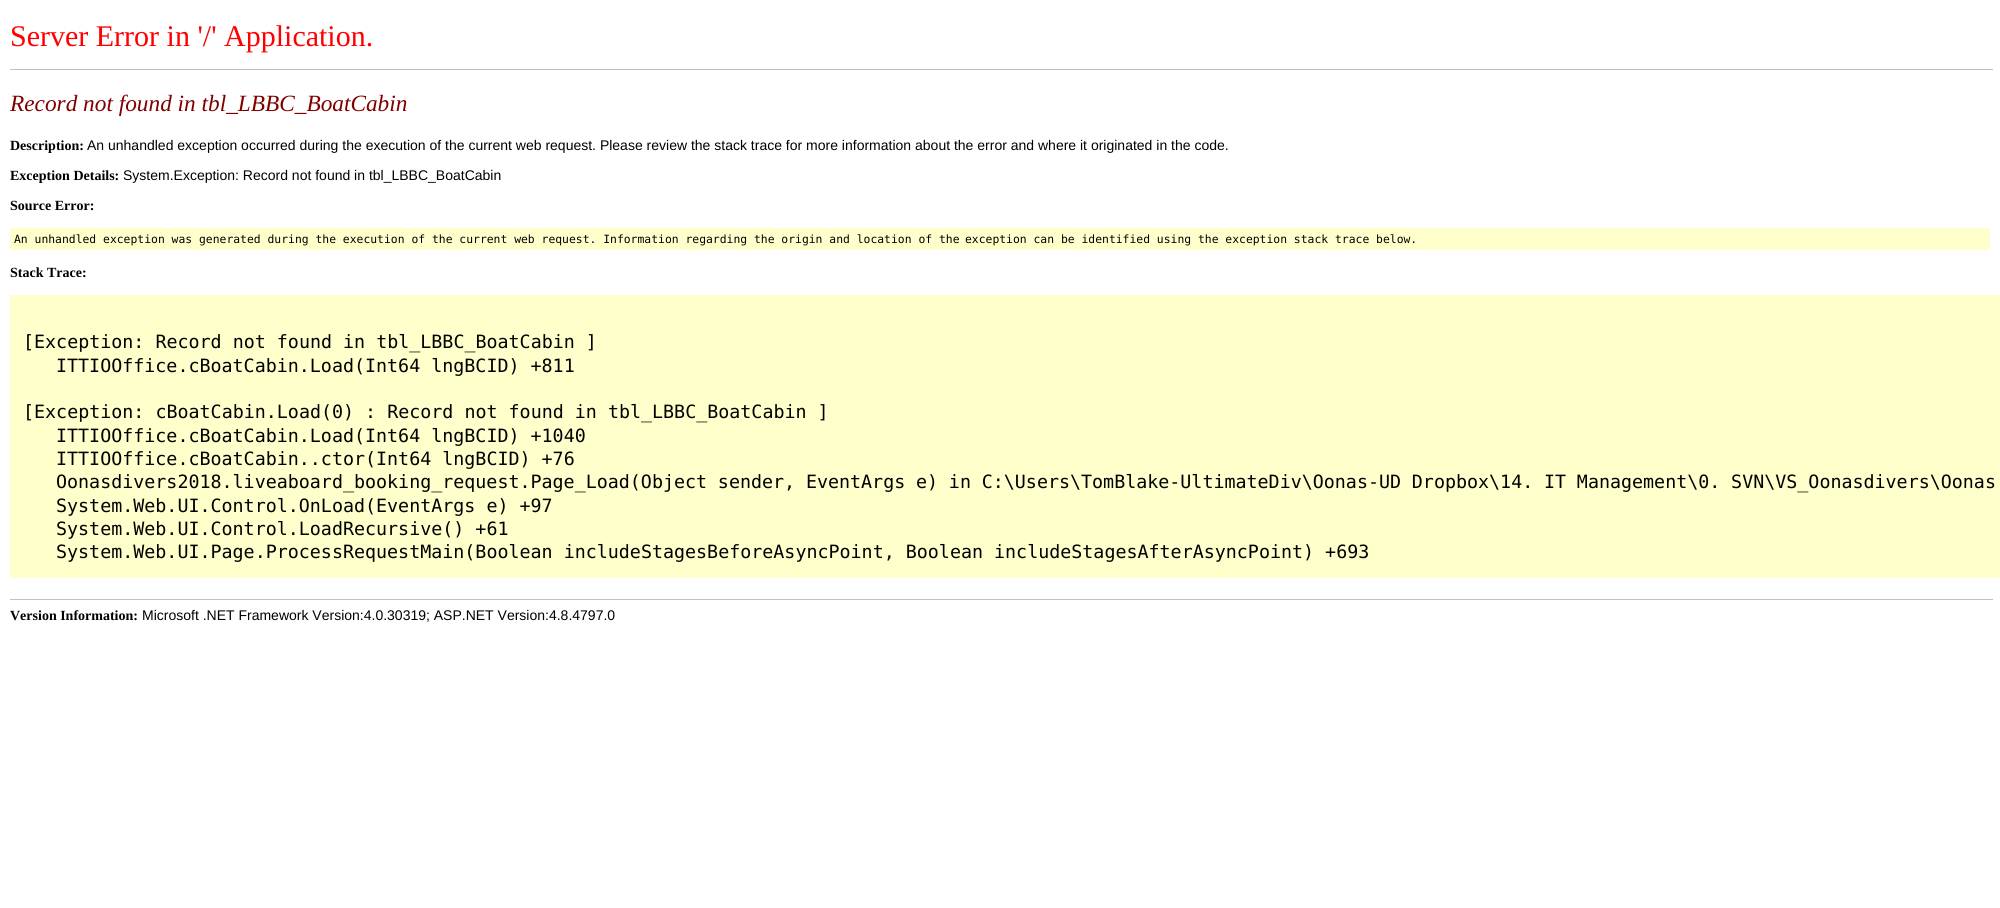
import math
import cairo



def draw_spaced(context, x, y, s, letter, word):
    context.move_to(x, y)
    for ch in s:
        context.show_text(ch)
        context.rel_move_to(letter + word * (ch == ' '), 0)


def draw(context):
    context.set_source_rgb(1, 1, 1)
    context.paint()
    context.set_source_rgb(192 / 255, 192 / 255, 192 / 255)
    context.rectangle(10, 69, 1983, 1)
    context.fill()
    context.set_source_rgb(1, 1, 204 / 255)
    context.rectangle(10, 228, 1980, 22)
    context.fill()
    context.rectangle(10, 295, 1990, 283)
    context.fill()
    context.set_source_rgb(192 / 255, 192 / 255, 192 / 255)
    context.rectangle(10, 599, 1983, 1)
    context.fill()
    context.select_font_face("Liberation Serif")
    context.set_font_size(30)
    context.set_source_rgb(1, 0, 0)
    context.move_to(10, 46)
    context.show_text("Server Error in '/' Application.")
    context.select_font_face("Liberation Serif", cairo.FontSlant.ITALIC)
    context.set_font_size(23.3)
    context.set_source_rgb(128 / 255, 0, 0)
    context.move_to(10, 111)
    context.show_text("Record not found in tbl_LBBC_BoatCabin")
    context.select_font_face("Liberation Serif", cairo.FontSlant.NORMAL, cairo.FontWeight.BOLD)
    context.set_font_size(14)
    context.set_source_rgb(0, 0, 0)
    context.move_to(10, 150)
    context.show_text("Description:")
    context.select_font_face("Liberation Sans")
    context.move_to(87, 150)
    context.show_text("An unhandled exception occurred during the execution of the current web request. Please review the stack trace for more information about the error and where it originated in the code.")
    context.select_font_face("Liberation Serif", cairo.FontSlant.NORMAL, cairo.FontWeight.BOLD)
    context.move_to(10, 180)
    context.show_text("Exception Details:")
    context.select_font_face("Liberation Sans")
    context.move_to(123, 180)
    context.show_text("System.Exception: Record not found in tbl_LBBC_BoatCabin")
    context.select_font_face("Liberation Serif", cairo.FontSlant.NORMAL, cairo.FontWeight.BOLD)
    context.move_to(10, 210)
    context.show_text("Source Error:")
    context.select_font_face("DejaVu Sans Mono")
    context.set_font_size(11.38)
    context.move_to(14, 243)
    context.show_text("An unhandled exception was generated during the execution of the current web request. Information regarding the origin and location of the")
    context.move_to(965, 243)
    context.show_text("exception can be identified using the exception stack trace below.")
    context.select_font_face("Liberation Serif", cairo.FontSlant.NORMAL, cairo.FontWeight.BOLD)
    context.set_font_size(14)
    context.move_to(10, 277)
    context.show_text("Stack Trace:")
    context.select_font_face("DejaVu Sans Mono")
    context.set_font_size(18.33)
    context.move_to(23, 348)
    context.show_text("[Exception: Record not found in tbl_LBBC_BoatCabin ]")
    context.move_to(56, 372)
    context.show_text("ITTIOOffice.cBoatCabin.Load(Int64 lngBCID) +811")
    context.move_to(23, 418)
    context.show_text("[Exception: cBoatCabin.Load(0) : Record not found in tbl_LBBC_BoatCabin ]")
    context.move_to(56, 442)
    context.show_text("ITTIOOffice.cBoatCabin.Load(Int64 lngBCID) +1040")
    context.move_to(56, 465)
    context.show_text("ITTIOOffice.cBoatCabin..ctor(Int64 lngBCID) +76")
    draw_spaced(context, 56, 488, "Oonasdivers2018.liveaboard_booking_request.Page_Load(Object sender, EventArgs e) in C:\\Users\\TomBlake-UltimateDiv\\Oonas-UD Dropbox\\14. IT Management\\0. SVN\\VS_Oonasdivers\\Oonas", 0, -0.25)
    context.move_to(56, 512)
    context.show_text("System.Web.UI.Control.OnLoad(EventArgs e) +97")
    context.move_to(56, 535)
    context.show_text("System.Web.UI.Control.LoadRecursive() +61")
    context.move_to(56, 558)
    context.show_text("System.Web.UI.Page.ProcessRequestMain(Boolean includeStagesBeforeAsyncPoint, Boolean includeStagesAfterAsyncPoint) +693")
    context.select_font_face("Liberation Serif", cairo.FontSlant.NORMAL, cairo.FontWeight.BOLD)
    context.set_font_size(14)
    context.move_to(10, 620)
    context.show_text("Version Information:")
    context.select_font_face("Liberation Sans")
    context.move_to(142, 620)
    context.show_text("Microsoft .NET Framework Version:4.0.30319; ASP.NET Version:4.8.4797.0")


surface = cairo.ImageSurface(cairo.Format.RGB24, 2000, 908)
context = cairo.Context(surface)
options = cairo.FontOptions()
options.set_hint_metrics(cairo.HintMetrics.OFF)
options.set_hint_style(cairo.HintStyle.NONE)
context.set_font_options(options)
context.set_miter_limit(4)
draw(context)
surface.write_to_png("out.png")
